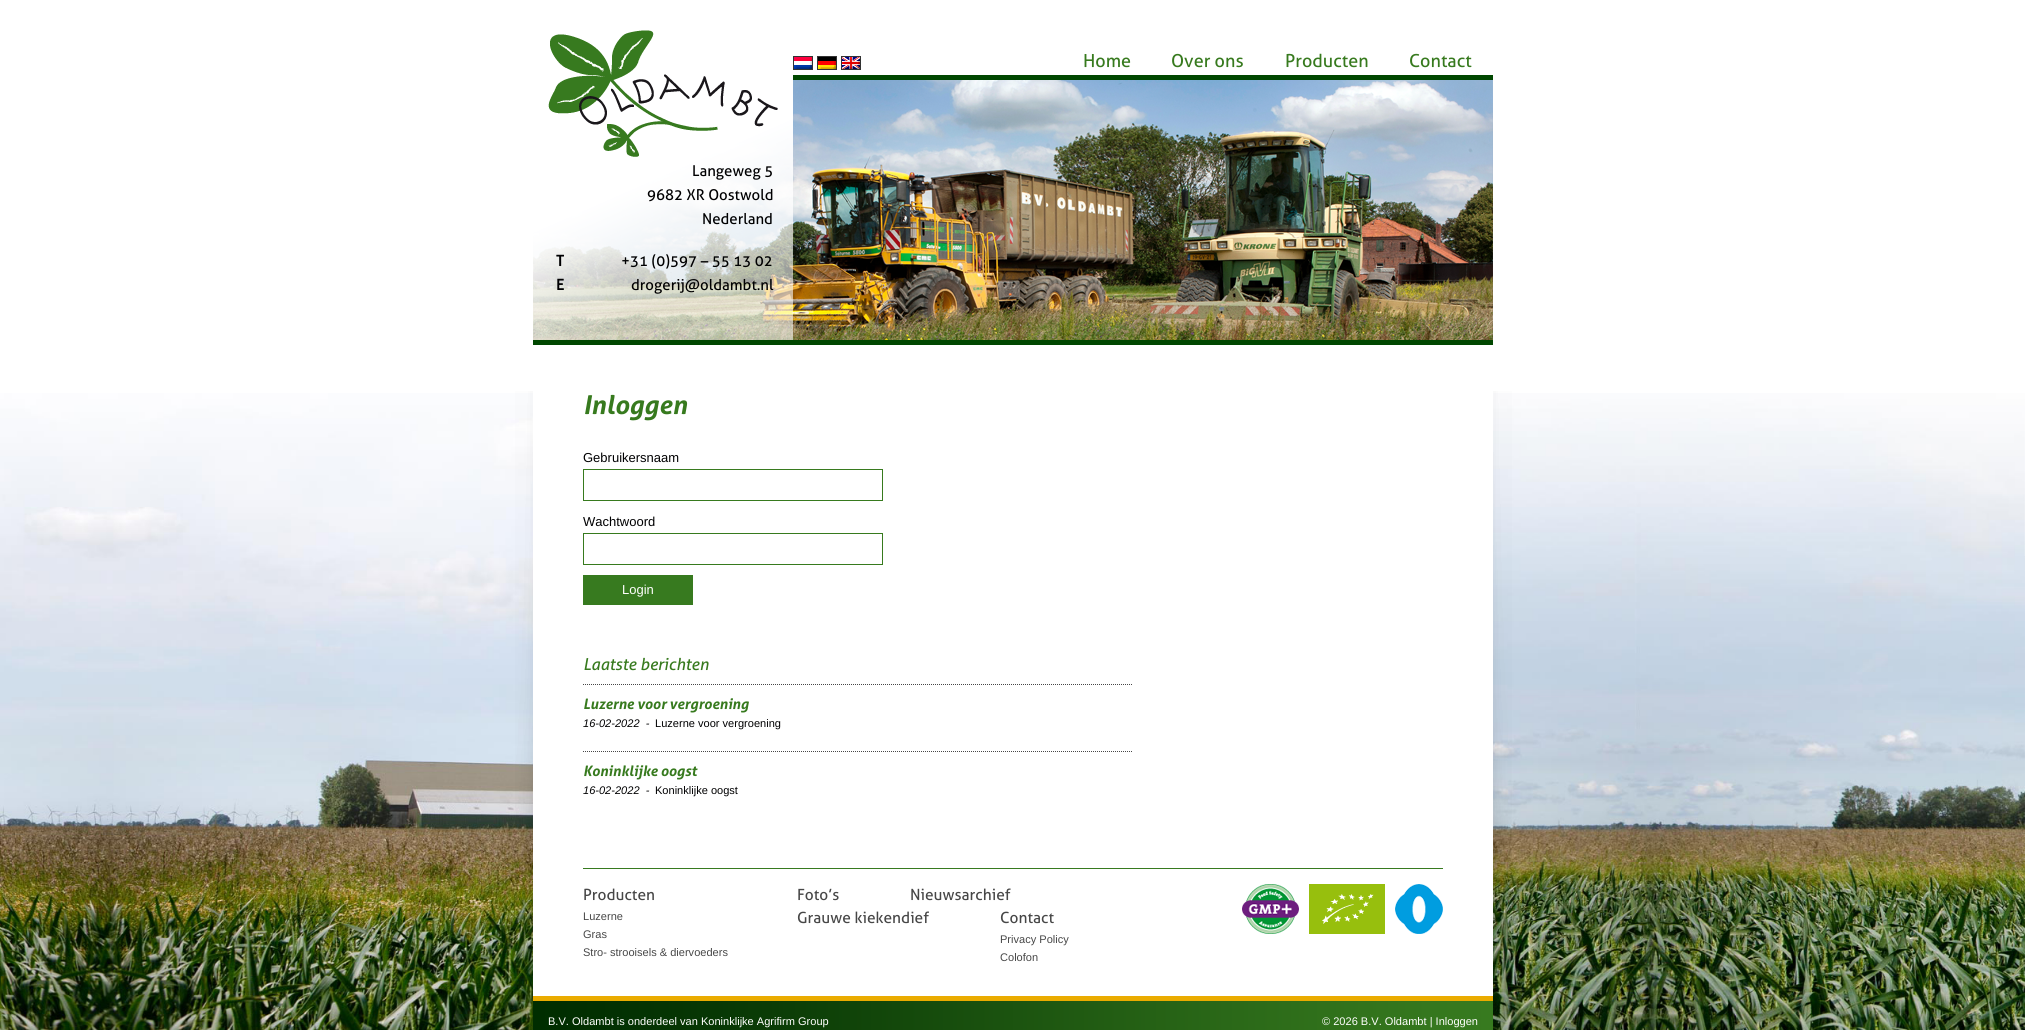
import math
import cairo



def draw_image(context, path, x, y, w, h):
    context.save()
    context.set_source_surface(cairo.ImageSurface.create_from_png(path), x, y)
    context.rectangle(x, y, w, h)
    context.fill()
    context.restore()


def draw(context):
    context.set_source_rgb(1, 1, 1)
    context.paint()
    draw_image(context, "images/1.png", 0, 393, 2025, 637)
    draw_image(context, "images/2.png", 2024, 556, 1, 474)
    context.set_source_rgb(1, 1, 1)
    context.rectangle(533, 393, 960, 603)
    context.fill()
    draw_image(context, "images/4.png", 533, 80, 960, 260)
    draw_image(context, "images/5.png", 533, 80, 260, 260)
    draw_image(context, "images/3.png", 548, 30, 230, 127)
    context.set_source_rgb(0, 71 / 255, 0)
    context.rectangle(793, 75, 700, 5)
    context.fill()
    context.rectangle(533, 340, 960, 5)
    context.fill()
    context.rectangle(793.5, 56.5, 19, 13)
    context.set_source_rgb(51 / 255, 51 / 255, 51 / 255)
    context.set_line_width(1)
    context.stroke()
    context.rectangle(817.5, 56.5, 19, 13)
    context.stroke()
    draw_image(context, "images/6.png", 818, 57, 18, 12)
    context.rectangle(841.5, 56.5, 19, 13)
    context.stroke()
    draw_image(context, "images/7.png", 842, 57, 18, 12)
    draw_image(context, "images/8.png", 794, 57, 18, 12)
    draw_image(context, "images/9.png", 515, 391, 18, 639)
    context.rectangle(583.5, 469.5, 299, 31)
    context.set_source_rgb(55 / 255, 122 / 255, 30 / 255)
    context.stroke()
    context.rectangle(583.5, 533.5, 299, 31)
    context.stroke()
    context.set_source_rgb(55 / 255, 122 / 255, 31 / 255)
    context.rectangle(583, 575, 110, 30)
    context.fill()
    context.new_path()
    context.move_to(583, 684.5)
    context.line_to(1133, 684.5)
    context.set_source_rgb(71 / 255, 71 / 255, 71 / 255)
    context.set_dash([1, 1])
    context.stroke()
    context.new_path()
    context.move_to(583, 751.5)
    context.line_to(1133, 751.5)
    context.stroke()
    draw_image(context, "images/10.png", 1493, 391, 19, 639)
    context.set_source_rgb(55 / 255, 122 / 255, 31 / 255)
    context.rectangle(583, 868, 860, 1)
    context.fill()
    draw_image(context, "images/11.png", 1242, 884, 57, 50)
    draw_image(context, "images/12.png", 1309, 884, 76, 50)
    draw_image(context, "images/13.png", 1395, 884, 48, 50)
    draw_image(context, "images/14.png", 533, 1001, 960, 29)
    context.set_source_rgb(234 / 255, 171 / 255, 0)
    context.rectangle(533, 996, 960, 5)
    context.fill()
    context.select_font_face("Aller")
    context.set_font_size(18)
    context.set_source_rgb(55 / 255, 122 / 255, 30 / 255)
    context.move_to(1083, 67)
    context.show_text("Home")
    context.move_to(1171, 67)
    context.show_text("Over ons")
    context.move_to(1285, 67)
    context.show_text("Producten")
    context.move_to(1409, 67)
    context.show_text("Contact")
    context.set_font_size(15)
    context.set_source_rgb(0, 0, 1 / 255)
    context.move_to(692, 176)
    context.show_text("Langeweg 5")
    context.move_to(647, 200)
    context.show_text("9682 XR Oostwold")
    context.move_to(702, 224)
    context.show_text("Nederland")
    context.select_font_face("Aller", cairo.FontSlant.NORMAL, cairo.FontWeight.BOLD)
    context.move_to(556, 266)
    context.show_text("T")
    context.select_font_face("Aller")
    context.move_to(621, 266)
    context.show_text("+31 (0)597 – 55 13 02")
    context.select_font_face("Aller", cairo.FontSlant.NORMAL, cairo.FontWeight.BOLD)
    context.move_to(556, 290)
    context.show_text("E")
    context.select_font_face("Aller")
    context.move_to(631, 290)
    context.show_text("drogerij@oldambt.nl")
    context.select_font_face("Aller", cairo.FontSlant.ITALIC, cairo.FontWeight.BOLD)
    context.set_font_size(26)
    context.set_source_rgb(55 / 255, 122 / 255, 30 / 255)
    context.move_to(583, 414)
    context.show_text("Inloggen")
    context.select_font_face("Liberation Sans")
    context.set_font_size(13)
    context.set_source_rgb(0, 0, 1 / 255)
    context.move_to(583, 462)
    context.show_text("Gebruikersnaam")
    context.move_to(583, 526)
    context.show_text("Wachtwoord")
    context.set_source_rgb(1, 1, 254 / 255)
    context.move_to(622, 594)
    context.show_text("Login")
    context.select_font_face("Aller", cairo.FontSlant.ITALIC)
    context.set_font_size(16.5)
    context.set_source_rgb(55 / 255, 122 / 255, 30 / 255)
    context.move_to(583, 670)
    context.show_text("Laatste berichten")
    context.select_font_face("Aller", cairo.FontSlant.ITALIC, cairo.FontWeight.BOLD)
    context.set_font_size(14.4)
    context.move_to(583, 709)
    context.show_text("Luzerne voor vergroening")
    context.select_font_face("Liberation Sans", cairo.FontSlant.ITALIC)
    context.set_font_size(11.05)
    context.set_source_rgb(0, 0, 1 / 255)
    context.move_to(583, 727)
    context.show_text("16-02-2022  -")
    context.select_font_face("Liberation Sans")
    context.move_to(655, 727)
    context.show_text("Luzerne voor vergroening")
    context.select_font_face("Aller", cairo.FontSlant.ITALIC, cairo.FontWeight.BOLD)
    context.set_font_size(14.4)
    context.set_source_rgb(55 / 255, 122 / 255, 30 / 255)
    context.move_to(583, 776)
    context.show_text("Koninklijke oogst")
    context.select_font_face("Liberation Sans", cairo.FontSlant.ITALIC)
    context.set_font_size(11.05)
    context.set_source_rgb(0, 0, 1 / 255)
    context.move_to(583, 794)
    context.show_text("16-02-2022  -")
    context.select_font_face("Liberation Sans")
    context.move_to(655, 794)
    context.show_text("Koninklijke oogst")
    context.select_font_face("Aller")
    context.set_font_size(15.5)
    context.set_source_rgb(71 / 255, 71 / 255, 71 / 255)
    context.move_to(583, 900)
    context.show_text("Producten")
    context.select_font_face("Liberation Sans")
    context.set_font_size(11.05)
    context.move_to(583, 920)
    context.show_text("Luzerne")
    context.move_to(583, 938)
    context.show_text("Gras")
    context.move_to(583, 956)
    context.show_text("Stro- strooisels & diervoeders")
    context.select_font_face("Aller")
    context.set_font_size(15.5)
    context.move_to(797, 900)
    context.show_text("Foto’s")
    context.move_to(910, 900)
    context.show_text("Nieuwsarchief")
    context.move_to(797, 923)
    context.show_text("Grauwe kiekendief")
    context.move_to(1000, 923)
    context.show_text("Contact")
    context.select_font_face("Liberation Sans")
    context.set_font_size(11.05)
    context.move_to(1000, 943)
    context.show_text("Privacy Policy")
    context.move_to(1000, 961)
    context.show_text("Colofon")
    context.set_source_rgb(1, 1, 254 / 255)
    context.move_to(548, 1025)
    context.show_text("B.V. Oldambt is onderdeel van Koninklijke Agrifirm Group")
    context.move_to(1322, 1025)
    context.show_text("© 2026 B.V. Oldambt | Inloggen")


surface = cairo.ImageSurface(cairo.Format.RGB24, 2025, 1030)
context = cairo.Context(surface)
options = cairo.FontOptions()
options.set_hint_metrics(cairo.HintMetrics.OFF)
options.set_hint_style(cairo.HintStyle.NONE)
context.set_font_options(options)
context.set_miter_limit(4)
draw(context)
surface.write_to_png("out.png")
